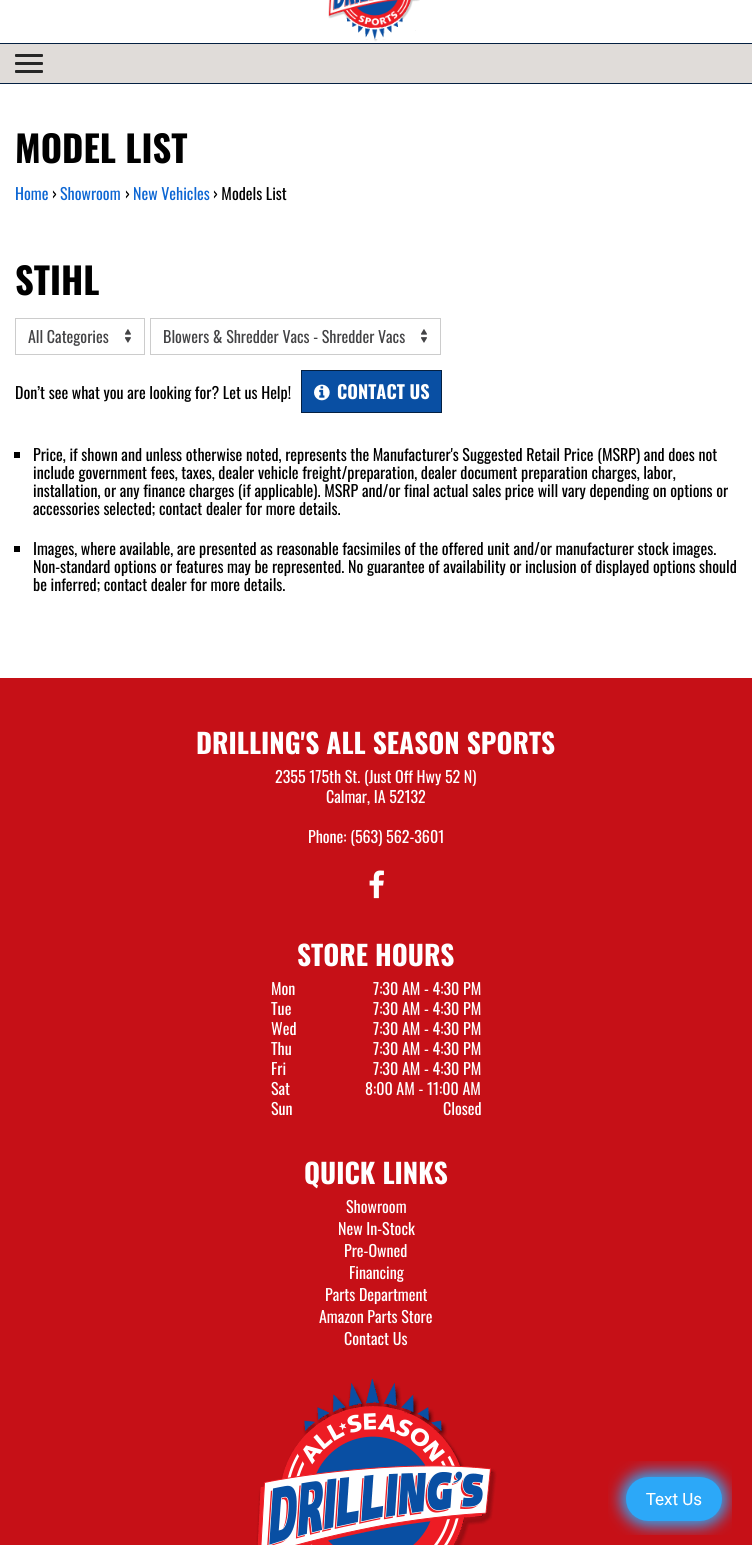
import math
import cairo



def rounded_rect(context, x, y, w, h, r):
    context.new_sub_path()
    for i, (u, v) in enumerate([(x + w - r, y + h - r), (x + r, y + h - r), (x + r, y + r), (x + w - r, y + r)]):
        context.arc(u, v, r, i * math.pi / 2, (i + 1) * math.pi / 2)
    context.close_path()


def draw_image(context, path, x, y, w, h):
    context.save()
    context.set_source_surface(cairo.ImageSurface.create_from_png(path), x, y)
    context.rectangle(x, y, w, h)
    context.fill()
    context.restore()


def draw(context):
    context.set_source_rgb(1, 1, 1)
    context.paint()
    draw_image(context, "images/1.png", 328, 0, 92, 42)
    context.set_source_rgb(224 / 255, 220 / 255, 217 / 255)
    context.rectangle(0, 44, 752, 39)
    context.fill()
    context.set_source_rgb(4 / 255, 32 / 255, 66 / 255)
    context.rectangle(0, 43, 752, 1)
    context.fill()
    context.rectangle(0, 83, 752, 1)
    context.fill()
    context.set_source_rgb(38 / 255, 38 / 255, 38 / 255)
    rounded_rect(context, 15, 54, 28, 3, 1)
    context.fill()
    rounded_rect(context, 15, 62, 28, 3, 1)
    context.fill()
    rounded_rect(context, 15, 70, 28, 3, 1)
    context.fill()
    context.rectangle(15.5, 318.5, 129, 36)
    context.set_source_rgb(204 / 255, 204 / 255, 204 / 255)
    context.set_line_width(1)
    context.stroke()
    draw_image(context, "images/2.png", 125, 329, 6, 14)
    context.rectangle(150.5, 318.5, 290, 36)
    context.stroke()
    draw_image(context, "images/3.png", 421, 329, 6, 14)
    context.set_source_rgb(9 / 255, 79 / 255, 163 / 255)
    context.rectangle(301.5, 370.5, 140, 42)
    context.fill_preserve()
    context.set_source_rgb(4 / 255, 32 / 255, 66 / 255)
    context.stroke()
    draw_image(context, "images/4.png", 314, 384, 16, 17)
    context.set_source_rgb(0, 0, 0)
    context.rectangle(14, 452, 6, 6)
    context.fill()
    context.rectangle(14, 546, 6, 6)
    context.fill()
    context.set_source_rgb(198 / 255, 16 / 255, 23 / 255)
    context.rectangle(0, 678, 752, 867)
    context.fill()
    draw_image(context, "images/5.png", 369, 870, 15, 29)
    draw_image(context, "images/6.png", 256, 1379, 241, 166)
    draw_image(context, "images/7.png", 608, 1461, 124, 74)
    context.select_font_face("Oswald", cairo.FontSlant.NORMAL, cairo.FontWeight.BOLD)
    context.set_font_size(36.5)
    context.set_source_rgb(0, 0, 0)
    context.move_to(15, 163)
    context.show_text("MODEL LIST")
    context.select_font_face("Oswald")
    context.set_font_size(16)
    context.set_source_rgb(12 / 255, 102 / 255, 211 / 255)
    context.move_to(15, 200)
    context.show_text("Home")
    context.set_source_rgb(0, 0, 0)
    context.move_to(52, 200)
    context.show_text("›")
    context.set_source_rgb(12 / 255, 102 / 255, 211 / 255)
    context.move_to(60, 200)
    context.show_text("Showroom")
    context.set_source_rgb(0, 0, 0)
    context.move_to(125, 200)
    context.show_text("›")
    context.set_source_rgb(12 / 255, 102 / 255, 211 / 255)
    context.move_to(133, 200)
    context.show_text("New Vehicles")
    context.set_source_rgb(0, 0, 0)
    context.move_to(213, 200)
    context.show_text("› Models List")
    context.select_font_face("Oswald", cairo.FontSlant.NORMAL, cairo.FontWeight.BOLD)
    context.set_font_size(36.5)
    context.move_to(15, 295)
    context.show_text("STIHL")
    context.select_font_face("Oswald")
    context.set_font_size(16)
    context.set_source_rgb(67 / 255, 67 / 255, 69 / 255)
    context.move_to(28, 343)
    context.show_text("All Categories")
    context.move_to(163, 343)
    context.show_text("Blowers & Shredder Vacs - Shredder Vacs")
    context.set_source_rgb(0, 0, 0)
    context.move_to(15, 399)
    context.show_text("Don’t see what you are looking for? Let us Help!")
    context.select_font_face("Oswald", cairo.FontSlant.NORMAL, cairo.FontWeight.BOLD)
    context.set_font_size(18.25)
    context.set_source_rgb(1, 1, 1)
    context.move_to(337, 399)
    context.show_text("CONTACT US")
    context.select_font_face("Oswald")
    context.set_font_size(16)
    context.set_source_rgb(0, 0, 0)
    context.move_to(33, 461)
    context.show_text("Price, if shown and unless otherwise noted, represents the Manufacturer's Suggested Retail Price (MSRP) and does not")
    context.move_to(33, 479)
    context.show_text("include government fees, taxes, dealer vehicle freight/preparation, dealer document preparation charges, labor,")
    context.move_to(33, 497)
    context.show_text("installation, or any finance charges (if applicable). MSRP and/or final actual sales price will vary depending on options or")
    context.move_to(33, 515)
    context.show_text("accessories selected; contact dealer for more details.")
    context.move_to(33, 555)
    context.show_text("Images, where available, are presented as reasonable facsimiles of the offered unit and/or manufacturer stock images.")
    context.move_to(33, 573)
    context.show_text("Non-standard options or features may be represented. No guarantee of availability or inclusion of displayed options should")
    context.move_to(33, 591)
    context.show_text("be inferred; contact dealer for more details.")
    context.select_font_face("Oswald", cairo.FontSlant.NORMAL, cairo.FontWeight.BOLD)
    context.set_font_size(27.4)
    context.set_source_rgb(1, 1, 1)
    context.move_to(196, 754)
    context.show_text("DRILLING'S ALL SEASON SPORTS")
    context.select_font_face("Oswald")
    context.set_font_size(16)
    context.move_to(275, 783)
    context.show_text("2355 175th St. (Just Off Hwy 52 N)")
    context.move_to(326, 803)
    context.show_text("Calmar, IA 52132")
    context.move_to(308, 843)
    context.show_text("Phone: (563) 562-3601")
    context.select_font_face("Oswald", cairo.FontSlant.NORMAL, cairo.FontWeight.BOLD)
    context.set_font_size(27.4)
    context.move_to(297, 966)
    context.show_text("STORE HOURS")
    context.select_font_face("Oswald")
    context.set_font_size(16)
    context.move_to(271, 995)
    context.show_text("Mon")
    context.move_to(373, 995)
    context.show_text("7:30 AM - 4:30 PM")
    context.move_to(271, 1015)
    context.show_text("Tue")
    context.move_to(373, 1015)
    context.show_text("7:30 AM - 4:30 PM")
    context.move_to(271, 1035)
    context.show_text("Wed")
    context.move_to(373, 1035)
    context.show_text("7:30 AM - 4:30 PM")
    context.move_to(271, 1055)
    context.show_text("Thu")
    context.move_to(373, 1055)
    context.show_text("7:30 AM - 4:30 PM")
    context.move_to(271, 1075)
    context.show_text("Fri")
    context.move_to(373, 1075)
    context.show_text("7:30 AM - 4:30 PM")
    context.move_to(271, 1095)
    context.show_text("Sat")
    context.move_to(365, 1095)
    context.show_text("8:00 AM - 11:00 AM")
    context.move_to(271, 1115)
    context.show_text("Sun")
    context.move_to(443, 1115)
    context.show_text("Closed")
    context.select_font_face("Oswald", cairo.FontSlant.NORMAL, cairo.FontWeight.BOLD)
    context.set_font_size(27.4)
    context.move_to(304, 1184)
    context.show_text("QUICK LINKS")
    context.select_font_face("Oswald")
    context.set_font_size(16)
    context.move_to(346, 1213)
    context.show_text("Showroom")
    context.move_to(338, 1235)
    context.show_text("New In-Stock")
    context.move_to(344, 1257)
    context.show_text("Pre-Owned")
    context.move_to(349, 1279)
    context.show_text("Financing")
    context.move_to(325, 1301)
    context.show_text("Parts Department")
    context.move_to(319, 1323)
    context.show_text("Amazon Parts Store")
    context.move_to(344, 1345)
    context.show_text("Contact Us")


surface = cairo.ImageSurface(cairo.Format.RGB24, 752, 1545)
context = cairo.Context(surface)
options = cairo.FontOptions()
options.set_hint_metrics(cairo.HintMetrics.OFF)
options.set_hint_style(cairo.HintStyle.NONE)
context.set_font_options(options)
context.set_miter_limit(4)
draw(context)
surface.write_to_png("out.png")
